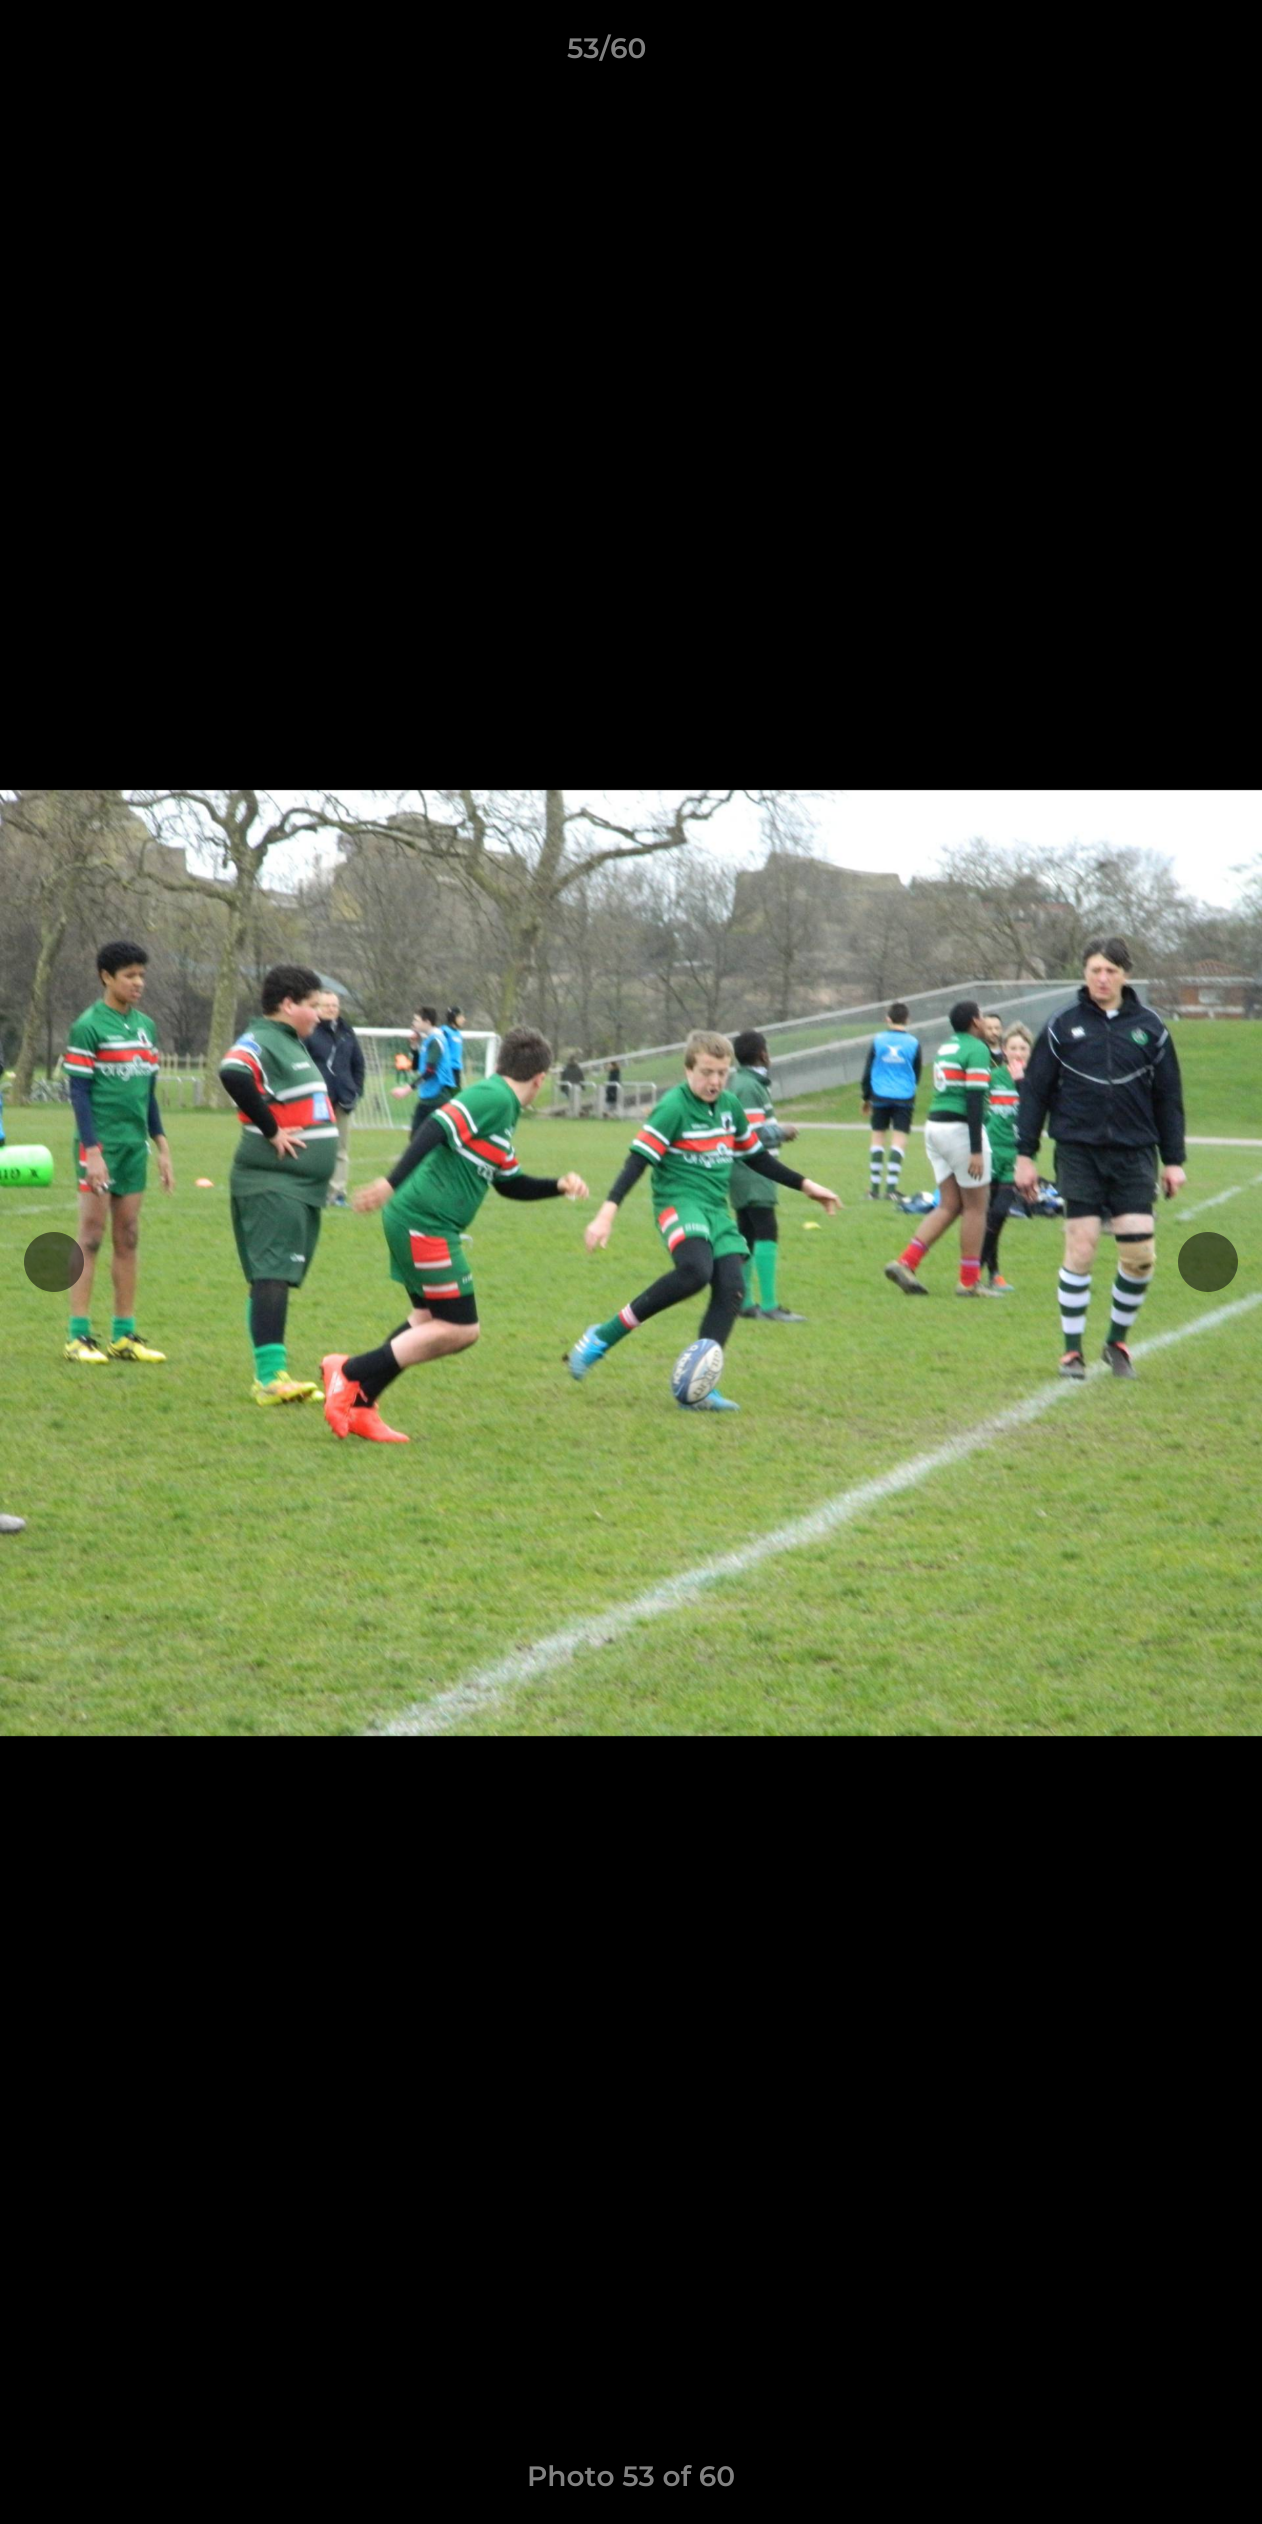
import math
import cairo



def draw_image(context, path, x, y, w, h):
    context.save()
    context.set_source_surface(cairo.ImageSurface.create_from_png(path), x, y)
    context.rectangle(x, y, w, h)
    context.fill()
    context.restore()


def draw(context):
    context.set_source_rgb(0, 0, 0)
    context.paint()
    draw_image(context, "images/1.png", 0, 789, 1262, 948)
    context.set_source_rgba(0, 0, 0, 0.5)
    context.arc(54, 1262, 30, 0, 2 * math.pi)
    context.fill()
    context.arc(1208, 1262, 30, 0, 2 * math.pi)
    context.fill()
    context.select_font_face("Montserrat SemiBold")
    context.set_font_size(28)
    context.set_source_rgb(128 / 255, 128 / 255, 128 / 255)
    context.move_to(567, 58)
    context.show_text("53/60")
    context.move_to(527, 2486)
    context.show_text("Photo 53 of 60")


surface = cairo.ImageSurface(cairo.Format.RGB24, 1262, 2524)
context = cairo.Context(surface)
options = cairo.FontOptions()
options.set_hint_metrics(cairo.HintMetrics.OFF)
options.set_hint_style(cairo.HintStyle.NONE)
context.set_font_options(options)
context.set_miter_limit(4)
draw(context)
surface.write_to_png("out.png")
